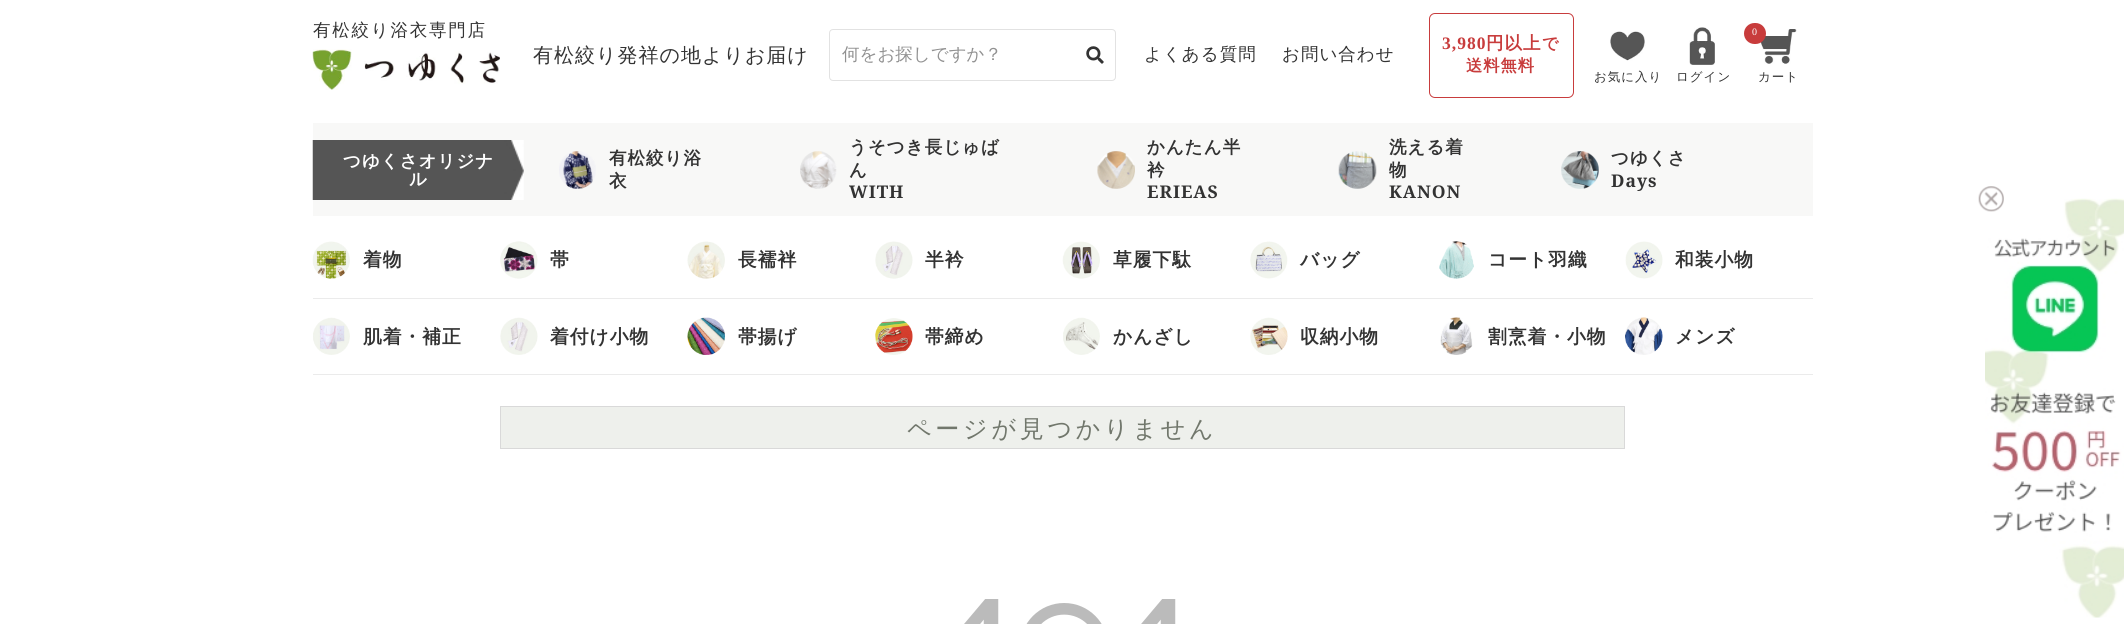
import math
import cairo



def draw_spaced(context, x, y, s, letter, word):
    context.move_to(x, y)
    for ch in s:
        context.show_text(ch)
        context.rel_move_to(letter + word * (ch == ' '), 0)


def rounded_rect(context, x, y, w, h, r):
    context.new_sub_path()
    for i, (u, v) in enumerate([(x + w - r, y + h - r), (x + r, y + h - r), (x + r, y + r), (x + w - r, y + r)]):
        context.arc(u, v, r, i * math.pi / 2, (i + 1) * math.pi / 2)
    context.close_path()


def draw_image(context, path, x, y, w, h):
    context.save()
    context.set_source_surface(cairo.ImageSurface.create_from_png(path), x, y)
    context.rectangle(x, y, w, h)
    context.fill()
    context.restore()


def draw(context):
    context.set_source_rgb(1, 1, 1)
    context.paint()
    draw_image(context, "images/1.png", 312, 49, 188, 41)
    rounded_rect(context, 829.5, 29.5, 286, 51, 3.5)
    context.set_source_rgb(226 / 255, 226 / 255, 226 / 255)
    context.set_line_width(1)
    context.stroke()
    draw_image(context, "images/2.png", 1086, 46, 18, 18)
    rounded_rect(context, 1429.5, 13.5, 144, 84, 5.5)
    context.set_source_rgb(200 / 255, 60 / 255, 61 / 255)
    context.stroke()
    draw_image(context, "images/3.png", 1610, 31, 36, 30)
    draw_image(context, "images/4.png", 1689, 27, 26, 38)
    draw_image(context, "images/5.png", 1758, 29, 39, 35)
    context.set_source_rgb(200 / 255, 60 / 255, 60 / 255)
    rounded_rect(context, 1744, 23, 22, 21, 10.5)
    context.fill()
    context.set_source_rgb(248 / 255, 248 / 255, 247 / 255)
    context.rectangle(313, 123, 1500, 93)
    context.fill()
    draw_image(context, "images/6.png", 312, 140, 212, 60)
    draw_image(context, "images/7.png", 559, 151, 37, 38)
    draw_image(context, "images/8.png", 800, 151, 37, 38)
    draw_image(context, "images/9.png", 1097, 151, 38, 38)
    draw_image(context, "images/10.png", 1338, 151, 39, 38)
    draw_image(context, "images/11.png", 1561, 151, 38, 38)
    context.set_source_rgb(235 / 255, 235 / 255, 235 / 255)
    context.rectangle(313, 298, 1500, 1)
    context.fill()
    draw_image(context, "images/12.png", 312, 241, 38, 38)
    draw_image(context, "images/13.png", 500, 241, 38, 38)
    draw_image(context, "images/14.png", 687, 241, 38, 38)
    draw_image(context, "images/15.png", 875, 241, 38, 38)
    draw_image(context, "images/16.png", 1062, 241, 38, 38)
    draw_image(context, "images/17.png", 1250, 241, 38, 38)
    draw_image(context, "images/18.png", 1439, 241, 35, 38)
    draw_image(context, "images/19.png", 1625, 241, 38, 38)
    context.rectangle(313, 374, 1500, 1)
    context.fill()
    draw_image(context, "images/20.png", 313, 317, 37, 38)
    draw_image(context, "images/21.png", 500, 317, 38, 38)
    draw_image(context, "images/22.png", 687, 317, 38, 38)
    draw_image(context, "images/23.png", 875, 318, 38, 37)
    draw_image(context, "images/24.png", 1063, 317, 37, 38)
    draw_image(context, "images/25.png", 1250, 317, 38, 38)
    draw_image(context, "images/26.png", 1440, 317, 33, 38)
    draw_image(context, "images/27.png", 1625, 317, 38, 38)
    draw_image(context, "images/29.png", 1985, 198, 139, 420)
    draw_image(context, "images/28.png", 1978, 186, 26, 26)
    context.set_source_rgb(238 / 255, 240 / 255, 236 / 255)
    context.rectangle(500.5, 406.5, 1124, 42)
    context.fill_preserve()
    context.set_source_rgb(217 / 255, 217 / 255, 217 / 255)
    context.stroke()
    draw_image(context, "images/30.png", 964, 599, 212, 25)
    context.select_font_face("WenQuanYi Zen Hei Medium")
    context.set_font_size(17.5)
    context.set_source_rgb(51 / 255, 51 / 255, 51 / 255)
    draw_spaced(context, 313, 36, "有松絞り浴衣専門店", 1.75, 0)
    context.set_font_size(20)
    draw_spaced(context, 533, 62, "有松絞り発祥の地よりお届け", 1, 0)
    context.set_font_size(17.5)
    context.set_source_rgb(145 / 255, 145 / 255, 145 / 255)
    context.move_to(842, 60)
    context.show_text("何をお探しですか？")
    context.set_source_rgb(51 / 255, 51 / 255, 51 / 255)
    draw_spaced(context, 1144, 60, "よくある質問", 1, 0)
    draw_spaced(context, 1282, 60, "お問い合わせ", 1, 0)
    context.select_font_face("Liberation Serif", cairo.FontSlant.NORMAL, cairo.FontWeight.BOLD)
    context.set_source_rgb(200 / 255, 60 / 255, 60 / 255)
    draw_spaced(context, 1442, 49, "3,980", 1, 0)
    context.select_font_face("WenQuanYi Zen Hei", cairo.FontSlant.NORMAL, cairo.FontWeight.BOLD)
    draw_spaced(context, 1486, 49, "円以上", 1, 0)
    context.set_font_size(16.25)
    draw_spaced(context, 1542, 49, "で", 1, 0)
    draw_spaced(context, 1466, 71, "送料無料", 1, 0)
    context.select_font_face("WenQuanYi Zen Hei Medium")
    context.set_font_size(12.5)
    context.set_source_rgb(51 / 255, 51 / 255, 51 / 255)
    draw_spaced(context, 1594, 81, "お気に入り", 1, 0)
    draw_spaced(context, 1676, 81, "ログイン", 1, 0)
    context.select_font_face("Liberation Serif")
    context.set_font_size(10)
    context.set_source_rgb(1, 1, 1)
    draw_spaced(context, 1752, 35, "0", 1, 0)
    context.select_font_face("WenQuanYi Zen Hei Medium")
    context.set_font_size(12.5)
    context.set_source_rgb(51 / 255, 51 / 255, 51 / 255)
    draw_spaced(context, 1758, 81, "カート", 1, 0)
    context.select_font_face("WenQuanYi Zen Hei", cairo.FontSlant.NORMAL, cairo.FontWeight.BOLD)
    context.set_font_size(17.5)
    context.set_source_rgb(1, 1, 1)
    draw_spaced(context, 343, 167, "つゆくさオリジナ", 1, 0)
    draw_spaced(context, 409, 185, "ル", 1, 0)
    context.set_source_rgb(51 / 255, 51 / 255, 51 / 255)
    draw_spaced(context, 609, 164, "有松絞り浴", 1, 0)
    draw_spaced(context, 609, 187, "衣", 1, 0)
    draw_spaced(context, 849, 153, "うそつき長じゅば", 1, 0)
    draw_spaced(context, 849, 176, "ん", 1, 0)
    context.select_font_face("Noto Serif", cairo.FontSlant.NORMAL, cairo.FontWeight.BOLD)
    draw_spaced(context, 849, 198, "WITH", 1, 0)
    context.select_font_face("WenQuanYi Zen Hei", cairo.FontSlant.NORMAL, cairo.FontWeight.BOLD)
    draw_spaced(context, 1147, 153, "かんたん半", 1, 0)
    draw_spaced(context, 1147, 176, "衿", 1, 0)
    context.select_font_face("Noto Serif", cairo.FontSlant.NORMAL, cairo.FontWeight.BOLD)
    draw_spaced(context, 1147, 198, "ERIEAS", 1, 0)
    context.select_font_face("WenQuanYi Zen Hei", cairo.FontSlant.NORMAL, cairo.FontWeight.BOLD)
    draw_spaced(context, 1389, 153, "洗える着", 1, 0)
    draw_spaced(context, 1389, 176, "物", 1, 0)
    context.select_font_face("Noto Serif", cairo.FontSlant.NORMAL, cairo.FontWeight.BOLD)
    draw_spaced(context, 1389, 198, "KANON", 1, 0)
    context.select_font_face("WenQuanYi Zen Hei", cairo.FontSlant.NORMAL, cairo.FontWeight.BOLD)
    draw_spaced(context, 1611, 164, "つゆくさ", 1, 0)
    context.select_font_face("Noto Serif", cairo.FontSlant.NORMAL, cairo.FontWeight.BOLD)
    draw_spaced(context, 1611, 187, "Days", 1, 0)
    context.select_font_face("WenQuanYi Zen Hei", cairo.FontSlant.NORMAL, cairo.FontWeight.BOLD)
    context.set_font_size(18.75)
    draw_spaced(context, 363, 266, "着物", 1, 0)
    draw_spaced(context, 550, 266, "帯", 1, 0)
    draw_spaced(context, 738, 266, "長襦袢", 1, 0)
    draw_spaced(context, 925, 266, "半衿", 1, 0)
    draw_spaced(context, 1113, 266, "草履下駄", 1, 0)
    draw_spaced(context, 1300, 266, "バッグ", 1, 0)
    draw_spaced(context, 1488, 266, "コート羽織", 1, 0)
    draw_spaced(context, 1675, 266, "和装小物", 1, 0)
    draw_spaced(context, 363, 343, "肌着・補正", 1, 0)
    draw_spaced(context, 550, 343, "着付け小物", 1, 0)
    draw_spaced(context, 738, 343, "帯揚げ", 1, 0)
    draw_spaced(context, 925, 343, "帯締め", 1, 0)
    draw_spaced(context, 1113, 343, "かんざし", 1, 0)
    draw_spaced(context, 1300, 343, "収納小物", 1, 0)
    draw_spaced(context, 1488, 343, "割烹着・小物", 1, 0)
    draw_spaced(context, 1675, 343, "メンズ", 1, 0)
    context.select_font_face("WenQuanYi Zen Hei Medium")
    context.set_font_size(24)
    context.set_source_rgb(113 / 255, 119 / 255, 108 / 255)
    draw_spaced(context, 907, 437, "ページが見つかりません", 3.75, 0)


surface = cairo.ImageSurface(cairo.Format.RGB24, 2124, 624)
context = cairo.Context(surface)
options = cairo.FontOptions()
options.set_hint_metrics(cairo.HintMetrics.OFF)
options.set_hint_style(cairo.HintStyle.NONE)
context.set_font_options(options)
context.set_miter_limit(4)
draw(context)
surface.write_to_png("out.png")
